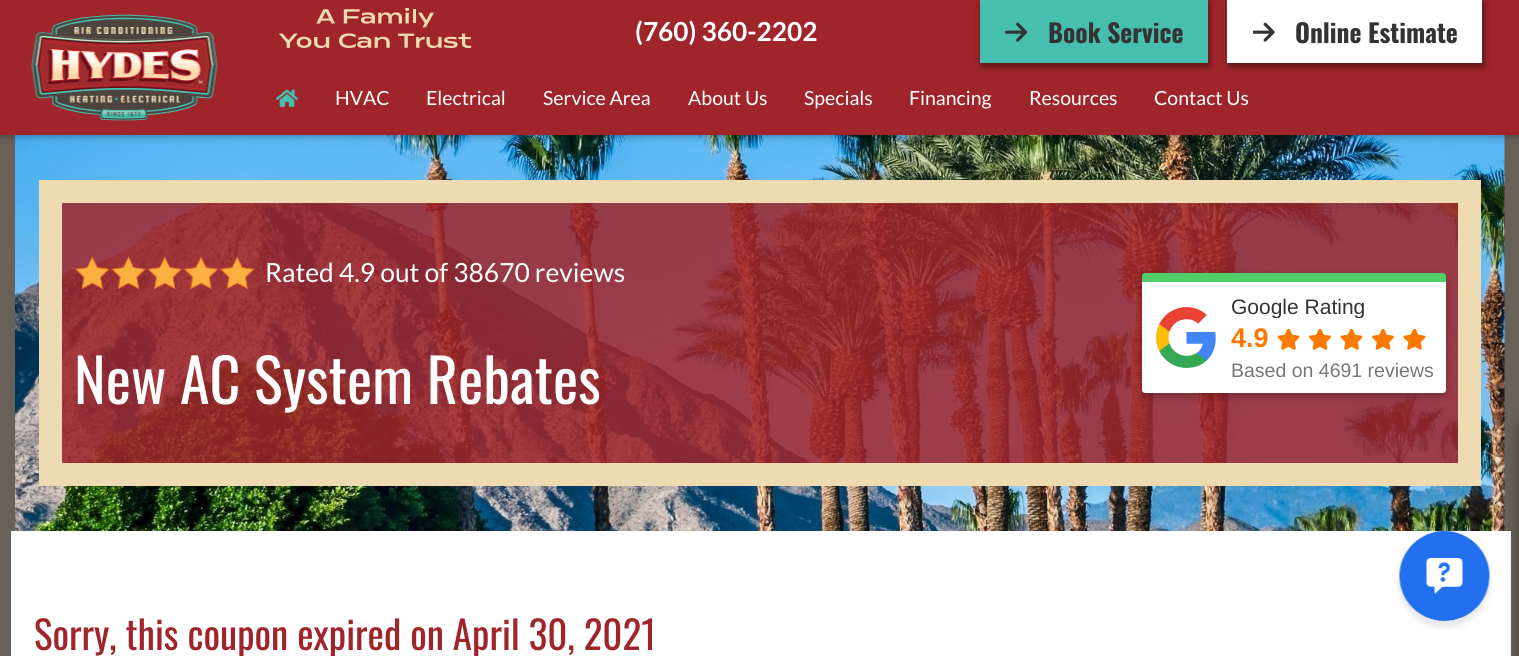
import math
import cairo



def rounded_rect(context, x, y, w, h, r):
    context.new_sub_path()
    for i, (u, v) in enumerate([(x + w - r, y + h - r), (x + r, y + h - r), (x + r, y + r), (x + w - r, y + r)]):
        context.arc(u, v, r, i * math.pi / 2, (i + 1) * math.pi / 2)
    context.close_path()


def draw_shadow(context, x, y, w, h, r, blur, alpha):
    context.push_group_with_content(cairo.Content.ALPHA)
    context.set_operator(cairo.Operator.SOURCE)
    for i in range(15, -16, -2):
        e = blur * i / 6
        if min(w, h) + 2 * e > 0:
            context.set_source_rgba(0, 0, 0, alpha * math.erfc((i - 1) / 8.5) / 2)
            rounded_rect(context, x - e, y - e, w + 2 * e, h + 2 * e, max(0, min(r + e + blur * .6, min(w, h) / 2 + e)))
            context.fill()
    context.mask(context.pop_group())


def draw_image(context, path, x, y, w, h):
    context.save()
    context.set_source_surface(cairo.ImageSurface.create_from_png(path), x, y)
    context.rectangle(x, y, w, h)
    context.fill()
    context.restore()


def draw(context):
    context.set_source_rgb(1, 1, 1)
    context.paint()
    draw_image(context, "images/1.png", 0, 135, 1519, 521)
    draw_image(context, "images/7.png", 15, 135, 1490, 396)
    context.set_source_rgb(0, 0, 0)
    draw_shadow(context, 0, 0, 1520, 135, 0, 4.5, 0.41)
    context.set_source_rgb(160 / 255, 37 / 255, 43 / 255)
    context.rectangle(0, 0, 1519, 135)
    context.fill()
    draw_image(context, "images/2.png", 31, 14, 187, 107)
    draw_image(context, "images/3.png", 279, 8, 193, 40)
    context.set_source_rgb(0, 0, 0)
    draw_shadow(context, 981, 3, 228, 63, 0, 4, 0.5)
    context.set_source_rgb(71 / 255, 191 / 255, 175 / 255)
    context.rectangle(980, 0, 228, 63)
    context.fill()
    draw_image(context, "images/4.png", 1005, 22, 23, 20)
    context.set_source_rgb(0, 0, 0)
    draw_shadow(context, 1229, 3, 255, 63, 0, 4, 0.5)
    context.set_source_rgb(1, 1, 1)
    context.rectangle(1227, 0, 255, 63)
    context.fill()
    draw_image(context, "images/5.png", 1253, 22, 22, 20)
    draw_image(context, "images/6.png", 276, 89, 22, 18)
    context.set_source_rgba(160 / 255, 37 / 255, 43 / 255, 0.85)
    context.rectangle(50.5, 191.5, 1419, 283)
    context.fill_preserve()
    context.set_source_rgb(239 / 255, 219 / 255, 178 / 255)
    context.set_line_width(23)
    context.stroke()
    draw_image(context, "images/8.png", 75, 256, 180, 34)
    context.set_source_rgb(0, 0, 0)
    draw_shadow(context, 1142, 276, 304, 120, 3, 4, 0.26)
    context.set_source_rgb(79 / 255, 206 / 255, 106 / 255)
    context.new_path()
    context.move_to(1145, 273)
    context.line_to(1443, 273)
    context.curve_to(1444.5, 273, 1446, 274.5, 1446, 276)
    context.line_to(1446, 282)
    context.line_to(1142, 282)
    context.line_to(1142, 276)
    context.curve_to(1142, 274.5, 1143.5, 273, 1145, 273)
    context.close_path()
    context.fill()
    context.set_source_rgb(1, 1, 1)
    context.new_path()
    context.move_to(1142, 282)
    context.line_to(1446, 282)
    context.line_to(1446, 390)
    context.curve_to(1446, 391.5, 1444.5, 393, 1443, 393)
    context.line_to(1145, 393)
    context.curve_to(1143.5, 393, 1142, 391.5, 1142, 390)
    context.close_path()
    context.fill()
    draw_image(context, "images/9.png", 1156, 307, 60, 61)
    draw_image(context, "images/10.png", 1277, 329, 23, 21)
    draw_image(context, "images/11.png", 1309, 329, 22, 21)
    draw_image(context, "images/10.png", 1340, 329, 23, 21)
    draw_image(context, "images/11.png", 1372, 329, 22, 21)
    draw_image(context, "images/10.png", 1403, 329, 23, 21)
    context.rectangle(11, 531, 1500, 125)
    context.fill()
    draw_image(context, "images/12.png", 1397, 531, 95, 99)
    context.set_source_rgb(0, 0, 0)
    draw_shadow(context, 1518, 426, 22, 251, 0, 7, 0.32)
    context.select_font_face("Lato", cairo.FontSlant.NORMAL, cairo.FontWeight.BOLD)
    context.set_font_size(26.25)
    context.set_source_rgb(1, 1, 1)
    context.move_to(635, 41)
    context.show_text("(760) 360-2202")
    context.select_font_face("Oswald", cairo.FontSlant.NORMAL, cairo.FontWeight.BOLD)
    context.set_font_size(25.5)
    context.set_source_rgb(51 / 255, 51 / 255, 51 / 255)
    context.move_to(1048, 43)
    context.show_text("Book Service")
    context.move_to(1295, 43)
    context.show_text("Online Estimate")
    context.select_font_face("Lato")
    context.set_font_size(19.5)
    context.set_source_rgb(1, 1, 1)
    context.move_to(335, 105)
    context.show_text("HVAC")
    context.move_to(426, 105)
    context.show_text("Electrical")
    context.move_to(543, 105)
    context.show_text("Service Area")
    context.move_to(688, 105)
    context.show_text("About Us")
    context.move_to(804, 105)
    context.show_text("Specials")
    context.move_to(909, 105)
    context.show_text("Financing")
    context.move_to(1029, 105)
    context.show_text("Resources")
    context.move_to(1154, 105)
    context.show_text("Contact Us")
    context.set_font_size(26.4)
    context.move_to(265, 282)
    context.show_text("Rated 4.9 out of 38670 reviews")
    context.select_font_face("Oswald")
    context.set_font_size(60)
    context.move_to(74, 404)
    context.show_text("New AC System Rebates")
    context.save()
    context.rectangle(1232, 294, 202, 24)
    context.clip()
    context.select_font_face("Liberation Sans")
    context.set_font_size(21)
    context.set_source_rgb(51 / 255, 51 / 255, 51 / 255)
    context.move_to(1231, 314)
    context.show_text("Google Rating")
    context.restore()
    context.select_font_face("Liberation Sans", cairo.FontSlant.NORMAL, cairo.FontWeight.BOLD)
    context.set_font_size(27)
    context.set_source_rgb(251 / 255, 121 / 255, 0)
    context.move_to(1231, 347)
    context.show_text("4.9")
    context.select_font_face("Liberation Sans")
    context.set_font_size(19.5)
    context.set_source_rgb(119 / 255, 119 / 255, 119 / 255)
    context.move_to(1231, 377)
    context.show_text("Based on 4691 reviews")
    context.select_font_face("Oswald")
    context.set_font_size(39)
    context.set_source_rgb(160 / 255, 37 / 255, 43 / 255)
    context.move_to(34, 650)
    context.show_text("Sorry, this coupon expired on April 30, 2021")


surface = cairo.ImageSurface(cairo.Format.RGB24, 1519, 656)
context = cairo.Context(surface)
options = cairo.FontOptions()
options.set_hint_metrics(cairo.HintMetrics.OFF)
options.set_hint_style(cairo.HintStyle.NONE)
context.set_font_options(options)
context.set_miter_limit(4)
draw(context)
surface.write_to_png("out.png")
